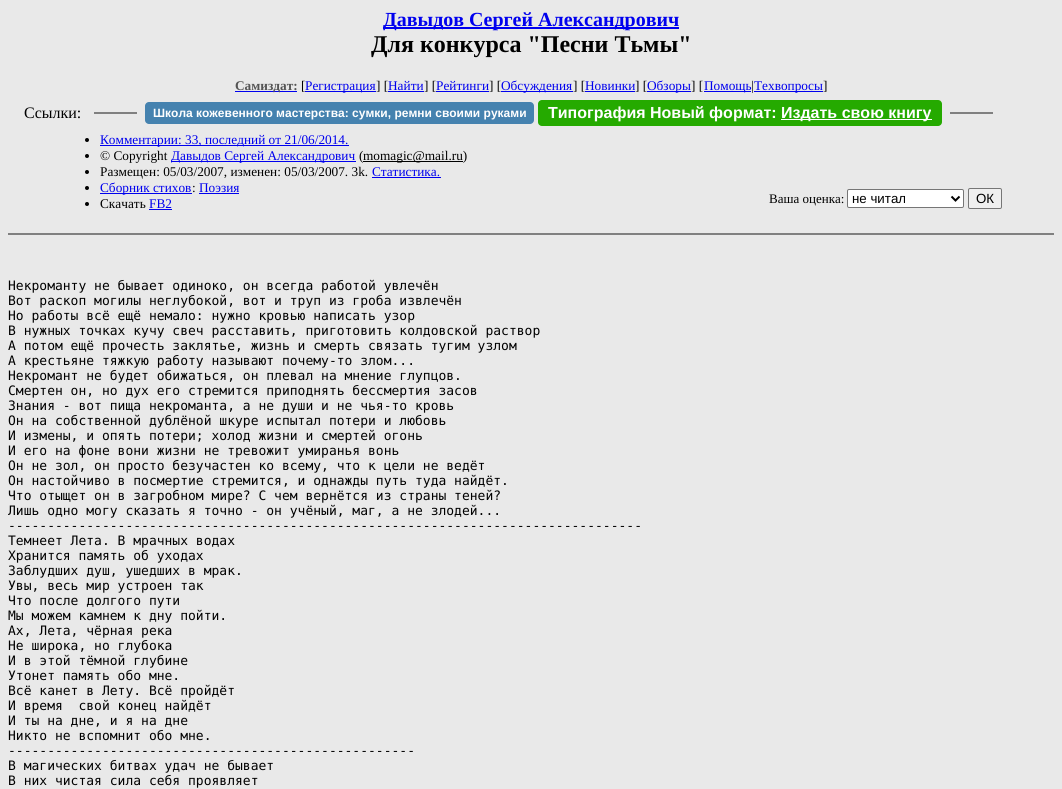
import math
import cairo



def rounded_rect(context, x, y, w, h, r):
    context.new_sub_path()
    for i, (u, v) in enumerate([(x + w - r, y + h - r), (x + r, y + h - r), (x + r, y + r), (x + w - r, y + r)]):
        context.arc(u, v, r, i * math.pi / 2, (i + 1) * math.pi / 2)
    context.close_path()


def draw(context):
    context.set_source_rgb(233 / 255, 233 / 255, 233 / 255)
    context.paint()
    context.set_source_rgb(0, 0, 238 / 255)
    context.rectangle(383, 27, 296, 2)
    context.fill()
    context.rectangle(235, 91, 62, 1)
    context.fill()
    context.rectangle(305, 91, 71, 1)
    context.fill()
    context.rectangle(388, 91, 36, 1)
    context.fill()
    context.rectangle(436, 91, 53, 1)
    context.fill()
    context.rectangle(501, 91, 72, 1)
    context.fill()
    context.rectangle(585, 91, 50, 1)
    context.fill()
    context.rectangle(647, 91, 44, 1)
    context.fill()
    context.rectangle(704, 91, 47, 1)
    context.fill()
    context.rectangle(754, 91, 69, 1)
    context.fill()
    context.set_source_rgb(128 / 255, 128 / 255, 128 / 255)
    context.rectangle(94, 112, 43, 2)
    context.fill()
    context.set_source_rgb(69 / 255, 130 / 255, 175 / 255)
    rounded_rect(context, 145, 102, 389, 22, 4)
    context.fill()
    context.set_source_rgb(37 / 255, 170 / 255, 0)
    rounded_rect(context, 538, 100, 404, 26, 4)
    context.fill()
    context.set_source_rgb(1, 1, 1)
    context.rectangle(781, 119, 151, 1)
    context.fill()
    context.set_source_rgb(128 / 255, 128 / 255, 128 / 255)
    context.rectangle(950, 112, 43, 2)
    context.fill()
    context.set_source_rgb(0, 0, 0)
    context.arc(87, 140, 2, 0, 2 * math.pi)
    context.fill()
    context.set_source_rgb(0, 0, 238 / 255)
    context.rectangle(100, 145, 249, 1)
    context.fill()
    context.set_source_rgb(0, 0, 0)
    context.arc(87, 156, 2, 0, 2 * math.pi)
    context.fill()
    context.set_source_rgb(0, 0, 238 / 255)
    context.rectangle(171, 161, 185, 1)
    context.fill()
    context.set_source_rgb(0, 0, 0)
    context.rectangle(363, 161, 100, 1)
    context.fill()
    context.arc(87, 172, 2, 0, 2 * math.pi)
    context.fill()
    context.set_source_rgb(0, 0, 238 / 255)
    context.rectangle(372, 177, 69, 1)
    context.fill()
    context.set_source_rgb(0, 0, 0)
    context.arc(87, 188, 2, 0, 2 * math.pi)
    context.fill()
    context.set_source_rgb(0, 0, 238 / 255)
    context.rectangle(100, 193, 92, 1)
    context.fill()
    context.rectangle(199, 193, 40, 1)
    context.fill()
    context.set_source_rgb(0, 0, 0)
    context.arc(87, 204, 2, 0, 2 * math.pi)
    context.fill()
    context.set_source_rgb(0, 0, 238 / 255)
    context.rectangle(149, 209, 23, 1)
    context.fill()
    context.set_source_rgb(1, 1, 1)
    rounded_rect(context, 847.5, 189.5, 116, 18, 1.5)
    context.fill_preserve()
    context.set_source_rgb(118 / 255, 118 / 255, 118 / 255)
    context.set_line_width(1)
    context.stroke()
    context.new_path()
    context.move_to(951.5, 196.5)
    context.line_to(955.5, 200.5)
    context.line_to(959.5, 196.5)
    context.set_source_rgb(0, 0, 0)
    context.set_line_width(2)
    context.stroke()
    context.set_source_rgb(239 / 255, 239 / 255, 239 / 255)
    rounded_rect(context, 968.5, 188.5, 33, 20, 1.5)
    context.fill_preserve()
    context.set_source_rgb(118 / 255, 118 / 255, 118 / 255)
    context.set_line_width(1)
    context.stroke()
    context.set_source_rgb(128 / 255, 128 / 255, 128 / 255)
    context.rectangle(8, 233, 1046, 2)
    context.fill()
    context.select_font_face("Liberation Serif", cairo.FontSlant.NORMAL, cairo.FontWeight.BOLD)
    context.set_font_size(20)
    context.set_source_rgb(0, 0, 238 / 255)
    context.move_to(383, 26)
    context.show_text("Давыдов Сергей Александрович")
    context.set_font_size(24)
    context.set_source_rgb(0, 0, 0)
    context.move_to(371, 52)
    context.show_text("Для конкурса \"Песни Тьмы\"")
    context.set_font_size(13.3)
    context.set_source_rgb(85 / 255, 85 / 255, 85 / 255)
    context.move_to(235, 90)
    context.show_text("Самиздат:")
    context.select_font_face("Liberation Serif")
    context.set_source_rgb(0, 0, 0)
    context.move_to(301, 90)
    context.show_text("[")
    context.set_source_rgb(0, 0, 238 / 255)
    context.move_to(305, 90)
    context.show_text("Регистрация")
    context.set_source_rgb(0, 0, 0)
    context.move_to(376, 90)
    context.show_text("] [")
    context.set_source_rgb(0, 0, 238 / 255)
    context.move_to(388, 90)
    context.show_text("Найти")
    context.set_source_rgb(0, 0, 0)
    context.move_to(424, 90)
    context.show_text("] [")
    context.set_source_rgb(0, 0, 238 / 255)
    context.move_to(436, 90)
    context.show_text("Рейтинги")
    context.set_source_rgb(0, 0, 0)
    context.move_to(489, 90)
    context.show_text("] [")
    context.set_source_rgb(0, 0, 238 / 255)
    context.move_to(501, 90)
    context.show_text("Обсуждения")
    context.set_source_rgb(0, 0, 0)
    context.move_to(573, 90)
    context.show_text("] [")
    context.set_source_rgb(0, 0, 238 / 255)
    context.move_to(585, 90)
    context.show_text("Новинки")
    context.set_source_rgb(0, 0, 0)
    context.move_to(635, 90)
    context.show_text("] [")
    context.set_source_rgb(0, 0, 238 / 255)
    context.move_to(647, 90)
    context.show_text("Обзоры")
    context.set_source_rgb(0, 0, 0)
    context.move_to(691, 90)
    context.show_text("] [")
    context.set_source_rgb(0, 0, 238 / 255)
    context.move_to(704, 90)
    context.show_text("Помощь")
    context.set_source_rgb(0, 0, 0)
    context.move_to(751, 90)
    context.show_text("|")
    context.set_source_rgb(0, 0, 238 / 255)
    context.move_to(754, 90)
    context.show_text("Техвопросы")
    context.set_source_rgb(0, 0, 0)
    context.move_to(823, 90)
    context.show_text("]")
    context.set_font_size(16)
    context.move_to(24, 118)
    context.show_text("Ссылки:")
    context.select_font_face("Liberation Sans", cairo.FontSlant.NORMAL, cairo.FontWeight.BOLD)
    context.set_font_size(12)
    context.set_source_rgb(1, 1, 1)
    context.move_to(153, 117)
    context.show_text("Школа кожевенного мастерства: сумки, ремни своими руками")
    context.set_font_size(16)
    context.move_to(548, 118)
    context.show_text("Типография Новый формат:")
    context.move_to(781, 118)
    context.show_text("Издать свою книгу")
    context.select_font_face("Liberation Serif")
    context.set_font_size(13.3)
    context.set_source_rgb(0, 0, 238 / 255)
    context.move_to(100, 144)
    context.show_text("Комментарии: 33, последний от 21/06/2014.")
    context.set_source_rgb(0, 0, 0)
    context.move_to(100, 160)
    context.show_text("© Copyright")
    context.set_source_rgb(0, 0, 238 / 255)
    context.move_to(171, 160)
    context.show_text("Давыдов Сергей Александрович")
    context.set_source_rgb(0, 0, 0)
    context.move_to(359, 160)
    context.show_text("(")
    context.move_to(363, 160)
    context.show_text("momagic@mail.ru)")
    context.move_to(100, 176)
    context.show_text("Размещен: 05/03/2007, изменен: 05/03/2007. 3k.")
    context.set_source_rgb(0, 0, 238 / 255)
    context.move_to(372, 176)
    context.show_text("Статистика.")
    context.move_to(100, 192)
    context.show_text("Сборник стихов")
    context.set_source_rgb(0, 0, 0)
    context.move_to(192, 192)
    context.show_text(":")
    context.set_source_rgb(0, 0, 238 / 255)
    context.move_to(199, 192)
    context.show_text("Поэзия")
    context.set_source_rgb(0, 0, 0)
    context.move_to(100, 208)
    context.show_text("Скачать")
    context.set_source_rgb(0, 0, 238 / 255)
    context.move_to(149, 208)
    context.show_text("FB2")
    context.set_font_size(13)
    context.set_source_rgb(0, 0, 0)
    context.move_to(769, 203)
    context.show_text("Ваша оценка:")
    context.select_font_face("Liberation Sans")
    context.set_font_size(13.3)
    context.move_to(852, 203)
    context.show_text("не читал")
    context.move_to(976, 203)
    context.show_text("ОК")
    context.select_font_face("DejaVu Sans Mono")
    context.set_font_size(13)
    context.move_to(8, 290)
    context.show_text("Некроманту не бывает одиноко, он всегда работой увлечён")
    context.move_to(8, 305)
    context.show_text("Вот раскоп могилы неглубокой, вот и труп из гроба извлечён")
    context.move_to(8, 320)
    context.show_text("Но работы всё ещё немало: нужно кровью написать узор")
    context.move_to(8, 335)
    context.show_text("В нужных точках кучу свеч расставить, приготовить колдовской раствор")
    context.move_to(8, 350)
    context.show_text("А потом ещё прочесть заклятье, жизнь и смерть связать тугим узлом")
    context.move_to(8, 365)
    context.show_text("А крестьяне тяжкую работу называют почему-то злом...")
    context.move_to(8, 380)
    context.show_text("Некромант не будет обижаться, он плевал на мнение глупцов.")
    context.move_to(8, 395)
    context.show_text("Смертен он, но дух его стремится приподнять бессмертия засов")
    context.move_to(8, 410)
    context.show_text("Знания - вот пища некроманта, а не души и не чья-то кровь")
    context.move_to(8, 425)
    context.show_text("Он на собственной дублёной шкуре испытал потери и любовь")
    context.move_to(8, 440)
    context.show_text("И измены, и опять потери; холод жизни и смертей огонь")
    context.move_to(8, 455)
    context.show_text("И его на фоне вони жизни не тревожит умиранья вонь")
    context.move_to(8, 470)
    context.show_text("Он не зол, он просто безучастен ко всему, что к цели не ведёт")
    context.move_to(8, 485)
    context.show_text("Он настойчиво в посмертие стремится, и однажды путь туда найдёт.")
    context.move_to(8, 500)
    context.show_text("Что отыщет он в загробном мире? С чем вернётся из страны теней?")
    context.move_to(8, 515)
    context.show_text("Лишь одно могу сказать я точно - он учёный, маг, а не злодей...")
    context.move_to(8, 530)
    context.show_text("---------------------------------------------------------------------------------")
    context.move_to(8, 545)
    context.show_text("Темнеет Лета. В мрачных водах")
    context.move_to(8, 560)
    context.show_text("Хранится память об уходах")
    context.move_to(8, 575)
    context.show_text("Заблудших душ, ушедших в мрак.")
    context.move_to(8, 590)
    context.show_text("Увы, весь мир устроен так")
    context.move_to(8, 605)
    context.show_text("Что после долгого пути")
    context.move_to(8, 620)
    context.show_text("Мы можем камнем к дну пойти.")
    context.move_to(8, 635)
    context.show_text("Ах, Лета, чёрная река")
    context.move_to(8, 650)
    context.show_text("Не широка, но глубока")
    context.move_to(8, 665)
    context.show_text("И в этой тёмной глубине")
    context.move_to(8, 680)
    context.show_text("Утонет память обо мне.")
    context.move_to(8, 695)
    context.show_text("Всё канет в Лету. Всё пройдёт")
    context.move_to(8, 710)
    context.show_text("И время  свой конец найдёт")
    context.move_to(8, 725)
    context.show_text("И ты на дне, и я на дне")
    context.move_to(8, 740)
    context.show_text("Никто не вспомнит обо мне.")
    context.move_to(8, 755)
    context.show_text("----------------------------------------------------")
    context.move_to(8, 770)
    context.show_text("В магических битвах удач не бывает")
    context.move_to(8, 785)
    context.show_text("В них чистая сила себя проявляет")


surface = cairo.ImageSurface(cairo.Format.RGB24, 1062, 789)
context = cairo.Context(surface)
options = cairo.FontOptions()
options.set_hint_metrics(cairo.HintMetrics.OFF)
options.set_hint_style(cairo.HintStyle.NONE)
context.set_font_options(options)
context.set_miter_limit(4)
draw(context)
surface.write_to_png("out.png")
